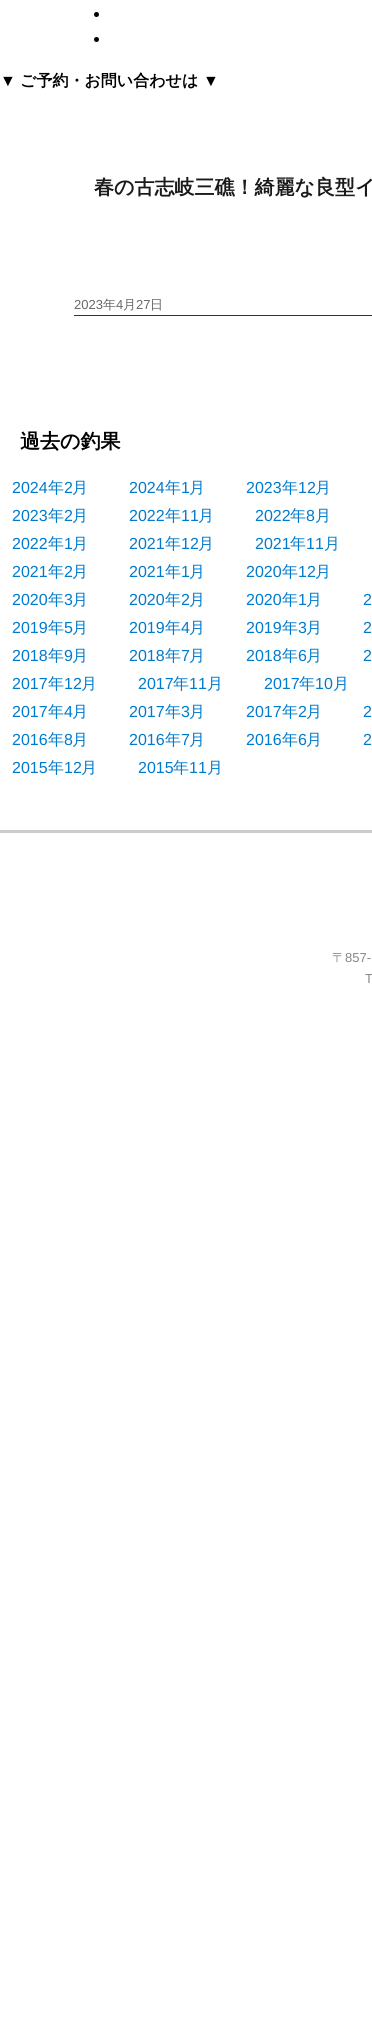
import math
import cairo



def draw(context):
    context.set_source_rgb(1, 1, 1)
    context.paint()
    context.set_source_rgb(0, 0, 0)
    context.arc(96.5, 14.5, 2.5, 0, 2 * math.pi)
    context.fill()
    context.arc(96.5, 39.5, 2.5, 0, 2 * math.pi)
    context.fill()
    context.set_source_rgb(22 / 255, 51 / 255, 118 / 255)
    context.rectangle(74, 315, 298, 1)
    context.fill()
    context.set_source_rgb(204 / 255, 204 / 255, 204 / 255)
    context.rectangle(0, 830, 372, 3)
    context.fill()
    context.select_font_face("Liberation Sans", cairo.FontSlant.NORMAL, cairo.FontWeight.BOLD)
    context.set_font_size(16)
    context.set_source_rgb(0, 0, 0)
    context.move_to(0, 86)
    context.show_text("▼")
    context.select_font_face("WenQuanYi Zen Hei", cairo.FontSlant.NORMAL, cairo.FontWeight.BOLD)
    context.move_to(20, 86)
    context.show_text("ご予約・お問い合わせは")
    context.select_font_face("Liberation Sans", cairo.FontSlant.NORMAL, cairo.FontWeight.BOLD)
    context.move_to(203, 86)
    context.show_text("▼")
    context.select_font_face("WenQuanYi Zen Hei", cairo.FontSlant.NORMAL, cairo.FontWeight.BOLD)
    context.set_font_size(20)
    context.set_source_rgb(26 / 255, 26 / 255, 26 / 255)
    context.move_to(94, 194)
    context.show_text("春の古志岐三礁！綺麗な良型イ")
    context.select_font_face("Liberation Sans")
    context.set_font_size(13)
    context.set_source_rgb(104 / 255, 104 / 255, 104 / 255)
    context.move_to(74, 309)
    context.show_text("2023")
    context.select_font_face("WenQuanYi Zen Hei Medium")
    context.move_to(103, 309)
    context.show_text("年")
    context.select_font_face("Liberation Sans")
    context.move_to(116, 309)
    context.show_text("4")
    context.select_font_face("WenQuanYi Zen Hei Medium")
    context.move_to(123, 309)
    context.show_text("月")
    context.select_font_face("Liberation Sans")
    context.move_to(136, 309)
    context.show_text("27")
    context.select_font_face("WenQuanYi Zen Hei Medium")
    context.move_to(150, 309)
    context.show_text("日")
    context.select_font_face("WenQuanYi Zen Hei", cairo.FontSlant.NORMAL, cairo.FontWeight.BOLD)
    context.set_font_size(20)
    context.set_source_rgb(0, 0, 0)
    context.move_to(20, 448)
    context.show_text("過去の釣果")
    context.select_font_face("Liberation Sans")
    context.set_font_size(16)
    context.set_source_rgb(0, 122 / 255, 204 / 255)
    context.move_to(12, 493)
    context.show_text("2024")
    context.select_font_face("WenQuanYi Zen Hei Medium")
    context.move_to(48, 493)
    context.show_text("年")
    context.select_font_face("Liberation Sans")
    context.move_to(64, 493)
    context.show_text("2")
    context.select_font_face("WenQuanYi Zen Hei Medium")
    context.move_to(72, 493)
    context.show_text("月")
    context.select_font_face("Liberation Sans")
    context.move_to(129, 493)
    context.show_text("2024")
    context.select_font_face("WenQuanYi Zen Hei Medium")
    context.move_to(165, 493)
    context.show_text("年")
    context.select_font_face("Liberation Sans")
    context.move_to(181, 493)
    context.show_text("1")
    context.select_font_face("WenQuanYi Zen Hei Medium")
    context.move_to(189, 493)
    context.show_text("月")
    context.select_font_face("Liberation Sans")
    context.move_to(246, 493)
    context.show_text("2023")
    context.select_font_face("WenQuanYi Zen Hei Medium")
    context.move_to(282, 493)
    context.show_text("年")
    context.select_font_face("Liberation Sans")
    context.move_to(298, 493)
    context.show_text("12")
    context.select_font_face("WenQuanYi Zen Hei Medium")
    context.move_to(315, 493)
    context.show_text("月")
    context.select_font_face("Liberation Sans")
    context.move_to(12, 521)
    context.show_text("2023")
    context.select_font_face("WenQuanYi Zen Hei Medium")
    context.move_to(48, 521)
    context.show_text("年")
    context.select_font_face("Liberation Sans")
    context.move_to(64, 521)
    context.show_text("2")
    context.select_font_face("WenQuanYi Zen Hei Medium")
    context.move_to(72, 521)
    context.show_text("月")
    context.select_font_face("Liberation Sans")
    context.move_to(129, 521)
    context.show_text("2022")
    context.select_font_face("WenQuanYi Zen Hei Medium")
    context.move_to(165, 521)
    context.show_text("年")
    context.select_font_face("Liberation Sans")
    context.move_to(181, 521)
    context.show_text("11")
    context.select_font_face("WenQuanYi Zen Hei Medium")
    context.move_to(198, 521)
    context.show_text("月")
    context.select_font_face("Liberation Sans")
    context.move_to(255, 521)
    context.show_text("2022")
    context.select_font_face("WenQuanYi Zen Hei Medium")
    context.move_to(290, 521)
    context.show_text("年")
    context.select_font_face("Liberation Sans")
    context.move_to(306, 521)
    context.show_text("8")
    context.select_font_face("WenQuanYi Zen Hei Medium")
    context.move_to(315, 521)
    context.show_text("月")
    context.select_font_face("Liberation Sans")
    context.move_to(12, 549)
    context.show_text("2022")
    context.select_font_face("WenQuanYi Zen Hei Medium")
    context.move_to(48, 549)
    context.show_text("年")
    context.select_font_face("Liberation Sans")
    context.move_to(64, 549)
    context.show_text("1")
    context.select_font_face("WenQuanYi Zen Hei Medium")
    context.move_to(72, 549)
    context.show_text("月")
    context.select_font_face("Liberation Sans")
    context.move_to(129, 549)
    context.show_text("2021")
    context.select_font_face("WenQuanYi Zen Hei Medium")
    context.move_to(165, 549)
    context.show_text("年")
    context.select_font_face("Liberation Sans")
    context.move_to(181, 549)
    context.show_text("12")
    context.select_font_face("WenQuanYi Zen Hei Medium")
    context.move_to(198, 549)
    context.show_text("月")
    context.select_font_face("Liberation Sans")
    context.move_to(255, 549)
    context.show_text("2021")
    context.select_font_face("WenQuanYi Zen Hei Medium")
    context.move_to(290, 549)
    context.show_text("年")
    context.select_font_face("Liberation Sans")
    context.move_to(306, 549)
    context.show_text("11")
    context.select_font_face("WenQuanYi Zen Hei Medium")
    context.move_to(324, 549)
    context.show_text("月")
    context.select_font_face("Liberation Sans")
    context.move_to(12, 577)
    context.show_text("2021")
    context.select_font_face("WenQuanYi Zen Hei Medium")
    context.move_to(48, 577)
    context.show_text("年")
    context.select_font_face("Liberation Sans")
    context.move_to(64, 577)
    context.show_text("2")
    context.select_font_face("WenQuanYi Zen Hei Medium")
    context.move_to(72, 577)
    context.show_text("月")
    context.select_font_face("Liberation Sans")
    context.move_to(129, 577)
    context.show_text("2021")
    context.select_font_face("WenQuanYi Zen Hei Medium")
    context.move_to(165, 577)
    context.show_text("年")
    context.select_font_face("Liberation Sans")
    context.move_to(181, 577)
    context.show_text("1")
    context.select_font_face("WenQuanYi Zen Hei Medium")
    context.move_to(189, 577)
    context.show_text("月")
    context.select_font_face("Liberation Sans")
    context.move_to(246, 577)
    context.show_text("2020")
    context.select_font_face("WenQuanYi Zen Hei Medium")
    context.move_to(282, 577)
    context.show_text("年")
    context.select_font_face("Liberation Sans")
    context.move_to(298, 577)
    context.show_text("12")
    context.select_font_face("WenQuanYi Zen Hei Medium")
    context.move_to(315, 577)
    context.show_text("月")
    context.select_font_face("Liberation Sans")
    context.move_to(12, 605)
    context.show_text("2020")
    context.select_font_face("WenQuanYi Zen Hei Medium")
    context.move_to(48, 605)
    context.show_text("年")
    context.select_font_face("Liberation Sans")
    context.move_to(64, 605)
    context.show_text("3")
    context.select_font_face("WenQuanYi Zen Hei Medium")
    context.move_to(72, 605)
    context.show_text("月")
    context.select_font_face("Liberation Sans")
    context.move_to(129, 605)
    context.show_text("2020")
    context.select_font_face("WenQuanYi Zen Hei Medium")
    context.move_to(165, 605)
    context.show_text("年")
    context.select_font_face("Liberation Sans")
    context.move_to(181, 605)
    context.show_text("2")
    context.select_font_face("WenQuanYi Zen Hei Medium")
    context.move_to(189, 605)
    context.show_text("月")
    context.select_font_face("Liberation Sans")
    context.move_to(246, 605)
    context.show_text("2020")
    context.select_font_face("WenQuanYi Zen Hei Medium")
    context.move_to(282, 605)
    context.show_text("年")
    context.select_font_face("Liberation Sans")
    context.move_to(298, 605)
    context.show_text("1")
    context.select_font_face("WenQuanYi Zen Hei Medium")
    context.move_to(306, 605)
    context.show_text("月")
    context.select_font_face("Liberation Sans")
    context.move_to(363, 605)
    context.show_text("2")
    context.move_to(12, 633)
    context.show_text("2019")
    context.select_font_face("WenQuanYi Zen Hei Medium")
    context.move_to(48, 633)
    context.show_text("年")
    context.select_font_face("Liberation Sans")
    context.move_to(64, 633)
    context.show_text("5")
    context.select_font_face("WenQuanYi Zen Hei Medium")
    context.move_to(72, 633)
    context.show_text("月")
    context.select_font_face("Liberation Sans")
    context.move_to(129, 633)
    context.show_text("2019")
    context.select_font_face("WenQuanYi Zen Hei Medium")
    context.move_to(165, 633)
    context.show_text("年")
    context.select_font_face("Liberation Sans")
    context.move_to(181, 633)
    context.show_text("4")
    context.select_font_face("WenQuanYi Zen Hei Medium")
    context.move_to(189, 633)
    context.show_text("月")
    context.select_font_face("Liberation Sans")
    context.move_to(246, 633)
    context.show_text("2019")
    context.select_font_face("WenQuanYi Zen Hei Medium")
    context.move_to(282, 633)
    context.show_text("年")
    context.select_font_face("Liberation Sans")
    context.move_to(298, 633)
    context.show_text("3")
    context.select_font_face("WenQuanYi Zen Hei Medium")
    context.move_to(306, 633)
    context.show_text("月")
    context.select_font_face("Liberation Sans")
    context.move_to(363, 633)
    context.show_text("2")
    context.move_to(12, 661)
    context.show_text("2018")
    context.select_font_face("WenQuanYi Zen Hei Medium")
    context.move_to(48, 661)
    context.show_text("年")
    context.select_font_face("Liberation Sans")
    context.move_to(64, 661)
    context.show_text("9")
    context.select_font_face("WenQuanYi Zen Hei Medium")
    context.move_to(72, 661)
    context.show_text("月")
    context.select_font_face("Liberation Sans")
    context.move_to(129, 661)
    context.show_text("2018")
    context.select_font_face("WenQuanYi Zen Hei Medium")
    context.move_to(165, 661)
    context.show_text("年")
    context.select_font_face("Liberation Sans")
    context.move_to(181, 661)
    context.show_text("7")
    context.select_font_face("WenQuanYi Zen Hei Medium")
    context.move_to(189, 661)
    context.show_text("月")
    context.select_font_face("Liberation Sans")
    context.move_to(246, 661)
    context.show_text("2018")
    context.select_font_face("WenQuanYi Zen Hei Medium")
    context.move_to(282, 661)
    context.show_text("年")
    context.select_font_face("Liberation Sans")
    context.move_to(298, 661)
    context.show_text("6")
    context.select_font_face("WenQuanYi Zen Hei Medium")
    context.move_to(306, 661)
    context.show_text("月")
    context.select_font_face("Liberation Sans")
    context.move_to(363, 661)
    context.show_text("2")
    context.move_to(12, 689)
    context.show_text("2017")
    context.select_font_face("WenQuanYi Zen Hei Medium")
    context.move_to(48, 689)
    context.show_text("年")
    context.select_font_face("Liberation Sans")
    context.move_to(64, 689)
    context.show_text("12")
    context.select_font_face("WenQuanYi Zen Hei Medium")
    context.move_to(81, 689)
    context.show_text("月")
    context.select_font_face("Liberation Sans")
    context.move_to(138, 689)
    context.show_text("2017")
    context.select_font_face("WenQuanYi Zen Hei Medium")
    context.move_to(173, 689)
    context.show_text("年")
    context.select_font_face("Liberation Sans")
    context.move_to(189, 689)
    context.show_text("11")
    context.select_font_face("WenQuanYi Zen Hei Medium")
    context.move_to(207, 689)
    context.show_text("月")
    context.select_font_face("Liberation Sans")
    context.move_to(264, 689)
    context.show_text("2017")
    context.select_font_face("WenQuanYi Zen Hei Medium")
    context.move_to(299, 689)
    context.show_text("年")
    context.select_font_face("Liberation Sans")
    context.move_to(315, 689)
    context.show_text("10")
    context.select_font_face("WenQuanYi Zen Hei Medium")
    context.move_to(333, 689)
    context.show_text("月")
    context.select_font_face("Liberation Sans")
    context.move_to(12, 717)
    context.show_text("2017")
    context.select_font_face("WenQuanYi Zen Hei Medium")
    context.move_to(48, 717)
    context.show_text("年")
    context.select_font_face("Liberation Sans")
    context.move_to(64, 717)
    context.show_text("4")
    context.select_font_face("WenQuanYi Zen Hei Medium")
    context.move_to(72, 717)
    context.show_text("月")
    context.select_font_face("Liberation Sans")
    context.move_to(129, 717)
    context.show_text("2017")
    context.select_font_face("WenQuanYi Zen Hei Medium")
    context.move_to(165, 717)
    context.show_text("年")
    context.select_font_face("Liberation Sans")
    context.move_to(181, 717)
    context.show_text("3")
    context.select_font_face("WenQuanYi Zen Hei Medium")
    context.move_to(189, 717)
    context.show_text("月")
    context.select_font_face("Liberation Sans")
    context.move_to(246, 717)
    context.show_text("2017")
    context.select_font_face("WenQuanYi Zen Hei Medium")
    context.move_to(282, 717)
    context.show_text("年")
    context.select_font_face("Liberation Sans")
    context.move_to(298, 717)
    context.show_text("2")
    context.select_font_face("WenQuanYi Zen Hei Medium")
    context.move_to(306, 717)
    context.show_text("月")
    context.select_font_face("Liberation Sans")
    context.move_to(363, 717)
    context.show_text("2")
    context.move_to(12, 745)
    context.show_text("2016")
    context.select_font_face("WenQuanYi Zen Hei Medium")
    context.move_to(48, 745)
    context.show_text("年")
    context.select_font_face("Liberation Sans")
    context.move_to(64, 745)
    context.show_text("8")
    context.select_font_face("WenQuanYi Zen Hei Medium")
    context.move_to(72, 745)
    context.show_text("月")
    context.select_font_face("Liberation Sans")
    context.move_to(129, 745)
    context.show_text("2016")
    context.select_font_face("WenQuanYi Zen Hei Medium")
    context.move_to(165, 745)
    context.show_text("年")
    context.select_font_face("Liberation Sans")
    context.move_to(181, 745)
    context.show_text("7")
    context.select_font_face("WenQuanYi Zen Hei Medium")
    context.move_to(189, 745)
    context.show_text("月")
    context.select_font_face("Liberation Sans")
    context.move_to(246, 745)
    context.show_text("2016")
    context.select_font_face("WenQuanYi Zen Hei Medium")
    context.move_to(282, 745)
    context.show_text("年")
    context.select_font_face("Liberation Sans")
    context.move_to(298, 745)
    context.show_text("6")
    context.select_font_face("WenQuanYi Zen Hei Medium")
    context.move_to(306, 745)
    context.show_text("月")
    context.select_font_face("Liberation Sans")
    context.move_to(363, 745)
    context.show_text("2")
    context.move_to(12, 773)
    context.show_text("2015")
    context.select_font_face("WenQuanYi Zen Hei Medium")
    context.move_to(48, 773)
    context.show_text("年")
    context.select_font_face("Liberation Sans")
    context.move_to(64, 773)
    context.show_text("12")
    context.select_font_face("WenQuanYi Zen Hei Medium")
    context.move_to(81, 773)
    context.show_text("月")
    context.select_font_face("Liberation Sans")
    context.move_to(138, 773)
    context.show_text("2015")
    context.select_font_face("WenQuanYi Zen Hei Medium")
    context.move_to(173, 773)
    context.show_text("年")
    context.select_font_face("Liberation Sans")
    context.move_to(189, 773)
    context.show_text("11")
    context.select_font_face("WenQuanYi Zen Hei Medium")
    context.move_to(207, 773)
    context.show_text("月")
    context.set_font_size(13)
    context.set_source_rgb(135 / 255, 135 / 255, 135 / 255)
    context.move_to(332, 962)
    context.show_text("〒")
    context.select_font_face("Liberation Sans")
    context.move_to(345, 962)
    context.show_text("857-")
    context.move_to(365, 983)
    context.show_text("T")


surface = cairo.ImageSurface(cairo.Format.RGB24, 372, 2022)
context = cairo.Context(surface)
options = cairo.FontOptions()
options.set_hint_metrics(cairo.HintMetrics.OFF)
options.set_hint_style(cairo.HintStyle.NONE)
context.set_font_options(options)
context.set_miter_limit(4)
draw(context)
surface.write_to_png("out.png")
